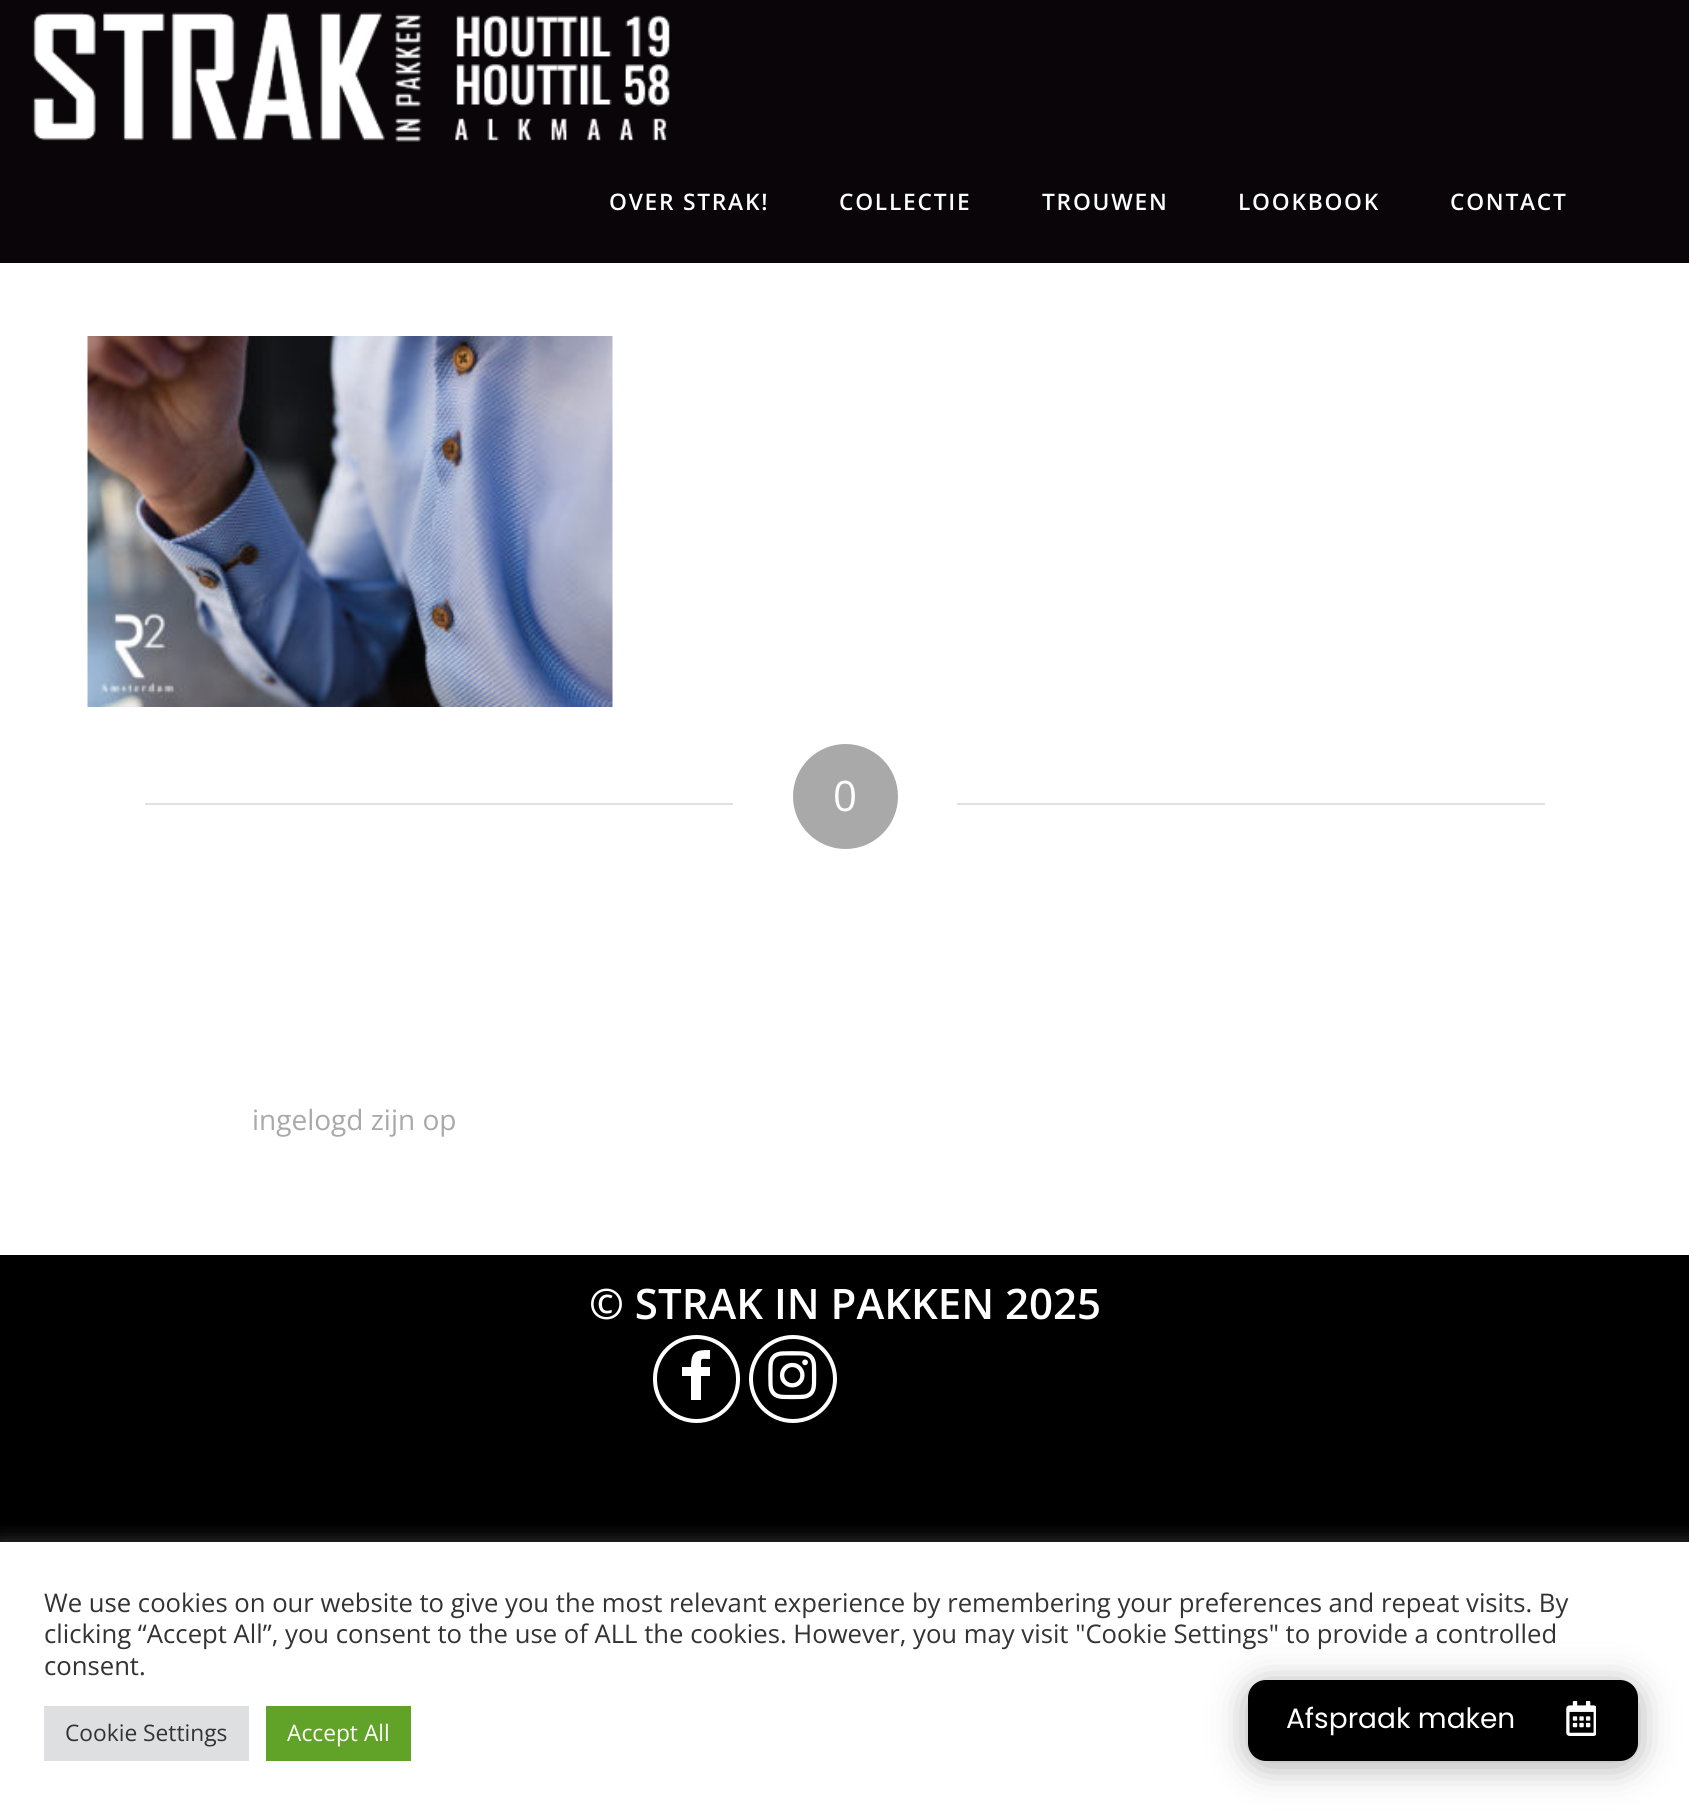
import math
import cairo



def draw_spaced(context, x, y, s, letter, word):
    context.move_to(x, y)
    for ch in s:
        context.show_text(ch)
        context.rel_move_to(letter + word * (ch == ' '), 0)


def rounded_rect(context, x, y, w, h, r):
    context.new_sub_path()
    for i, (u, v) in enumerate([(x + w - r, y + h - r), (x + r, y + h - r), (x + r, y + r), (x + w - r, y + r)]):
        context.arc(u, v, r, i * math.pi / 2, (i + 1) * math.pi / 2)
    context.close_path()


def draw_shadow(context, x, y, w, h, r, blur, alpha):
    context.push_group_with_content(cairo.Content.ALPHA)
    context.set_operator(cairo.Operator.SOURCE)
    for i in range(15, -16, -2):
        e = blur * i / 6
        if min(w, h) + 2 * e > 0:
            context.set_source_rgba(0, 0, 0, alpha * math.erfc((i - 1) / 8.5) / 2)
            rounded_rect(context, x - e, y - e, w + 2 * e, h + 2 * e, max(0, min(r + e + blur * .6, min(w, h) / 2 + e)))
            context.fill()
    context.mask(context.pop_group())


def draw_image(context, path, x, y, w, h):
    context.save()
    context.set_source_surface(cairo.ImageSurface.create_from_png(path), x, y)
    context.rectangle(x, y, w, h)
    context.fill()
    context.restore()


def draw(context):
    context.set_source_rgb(0, 0, 0)
    context.paint()
    context.set_source_rgb(9 / 255, 5 / 255, 8 / 255)
    context.rectangle(0, 0, 1689, 263)
    context.fill()
    draw_image(context, "images/1.png", 32, 12, 638, 130)
    context.set_source_rgb(1, 1, 1)
    context.rectangle(0, 263, 1689, 992)
    context.fill()
    draw_image(context, "images/2.png", 87, 336, 526, 371)
    context.set_source_rgb(225 / 255, 225 / 255, 225 / 255)
    context.rectangle(145, 803, 588, 2)
    context.fill()
    context.set_source_rgb(169 / 255, 169 / 255, 169 / 255)
    context.arc(845.5, 796.5, 52.5, 0, 2 * math.pi)
    context.fill()
    context.set_source_rgb(225 / 255, 225 / 255, 225 / 255)
    context.rectangle(957, 803, 588, 2)
    context.fill()
    rounded_rect(context, 655, 1337, 83, 84, 41.5)
    context.set_source_rgb(1, 1, 1)
    context.set_line_width(4)
    context.stroke()
    context.new_path()
    context.move_to(710, 1359)
    context.curve_to(700, 1359, 701, 1357, 701, 1367)
    context.line_to(710, 1367)
    context.line_to(710, 1376)
    context.line_to(701, 1376)
    context.line_to(701, 1400)
    context.line_to(691, 1400)
    context.line_to(691, 1376)
    context.line_to(682, 1376)
    context.line_to(682, 1367)
    context.line_to(691, 1367)
    context.curve_to(691, 1351, 696, 1350, 710, 1350)
    context.close_path()
    context.fill()
    context.arc(793, 1379, 42, 0, 2 * math.pi)
    context.stroke()
    draw_image(context, "images/3.png", 768, 1351, 49, 49)
    context.set_source_rgb(172 / 255, 171 / 255, 171 / 255)
    draw_shadow(context, 0, 1540, 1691, 271, 0, 9, 0.3)
    context.set_source_rgb(1, 1, 1)
    context.rectangle(0, 1542, 1689, 271)
    context.fill()
    context.set_source_rgb(222 / 255, 223 / 255, 224 / 255)
    context.rectangle(44, 1706, 205, 55)
    context.fill()
    context.set_source_rgb(97 / 255, 162 / 255, 41 / 255)
    context.rectangle(266, 1706, 145, 55)
    context.fill()
    context.set_source_rgb(50 / 255, 50 / 255, 50 / 255)
    draw_shadow(context, 1248, 1685, 390, 81, 18, 17.5, 0.41)
    context.set_source_rgb(0, 0, 0)
    rounded_rect(context, 1248, 1680, 390, 81, 18)
    context.fill()
    draw_image(context, "images/4.png", 1566, 1701, 30, 35)
    context.select_font_face("Open Sans SemiBold")
    context.set_font_size(22.75)
    context.set_source_rgb(1, 1, 1)
    draw_spaced(context, 609, 210, "OVER STRAK!", 1.75, 0)
    draw_spaced(context, 839, 210, "COLLECTIE", 1.75, 0)
    draw_spaced(context, 1042, 210, "TROUWEN", 1.75, 0)
    draw_spaced(context, 1238, 210, "LOOKBOOK", 1.75, 0)
    draw_spaced(context, 1450, 210, "CONTACT", 1.75, 0)
    context.select_font_face("Open Sans")
    context.set_font_size(42)
    context.move_to(833, 811)
    context.show_text("0")
    context.set_font_size(28)
    context.set_source_rgb(169 / 255, 169 / 255, 169 / 255)
    context.move_to(252, 1130)
    context.show_text("ingelogd zijn op")
    context.select_font_face("Open Sans SemiBold")
    context.set_font_size(42)
    context.set_source_rgb(1, 1, 1)
    context.move_to(589, 1319)
    context.show_text("© STRAK IN PAKKEN 2025")
    context.select_font_face("Open Sans")
    context.set_font_size(25.67)
    context.set_source_rgb(51 / 255, 51 / 255, 51 / 255)
    context.move_to(44, 1612)
    context.show_text("We use cookies on our website to give you the most relevant experience by remembering your preferences and repeat visits. By")
    context.move_to(44, 1643)
    context.show_text("clicking “Accept All”, you consent to the use of ALL the cookies. However, you may visit \"Cookie Settings\" to provide a controlled")
    context.move_to(44, 1675)
    context.show_text("consent.")
    context.set_font_size(22.75)
    context.move_to(65, 1741)
    context.show_text("Cookie Settings")
    context.set_source_rgb(1, 1, 1)
    context.move_to(287, 1741)
    context.show_text("Accept All")
    context.select_font_face("Poppins")
    context.set_font_size(28)
    context.move_to(1286, 1728)
    context.show_text("Afspraak maken")


surface = cairo.ImageSurface(cairo.Format.RGB24, 1689, 1813)
context = cairo.Context(surface)
options = cairo.FontOptions()
options.set_hint_metrics(cairo.HintMetrics.OFF)
options.set_hint_style(cairo.HintStyle.NONE)
context.set_font_options(options)
context.set_miter_limit(4)
draw(context)
surface.write_to_png("out.png")
